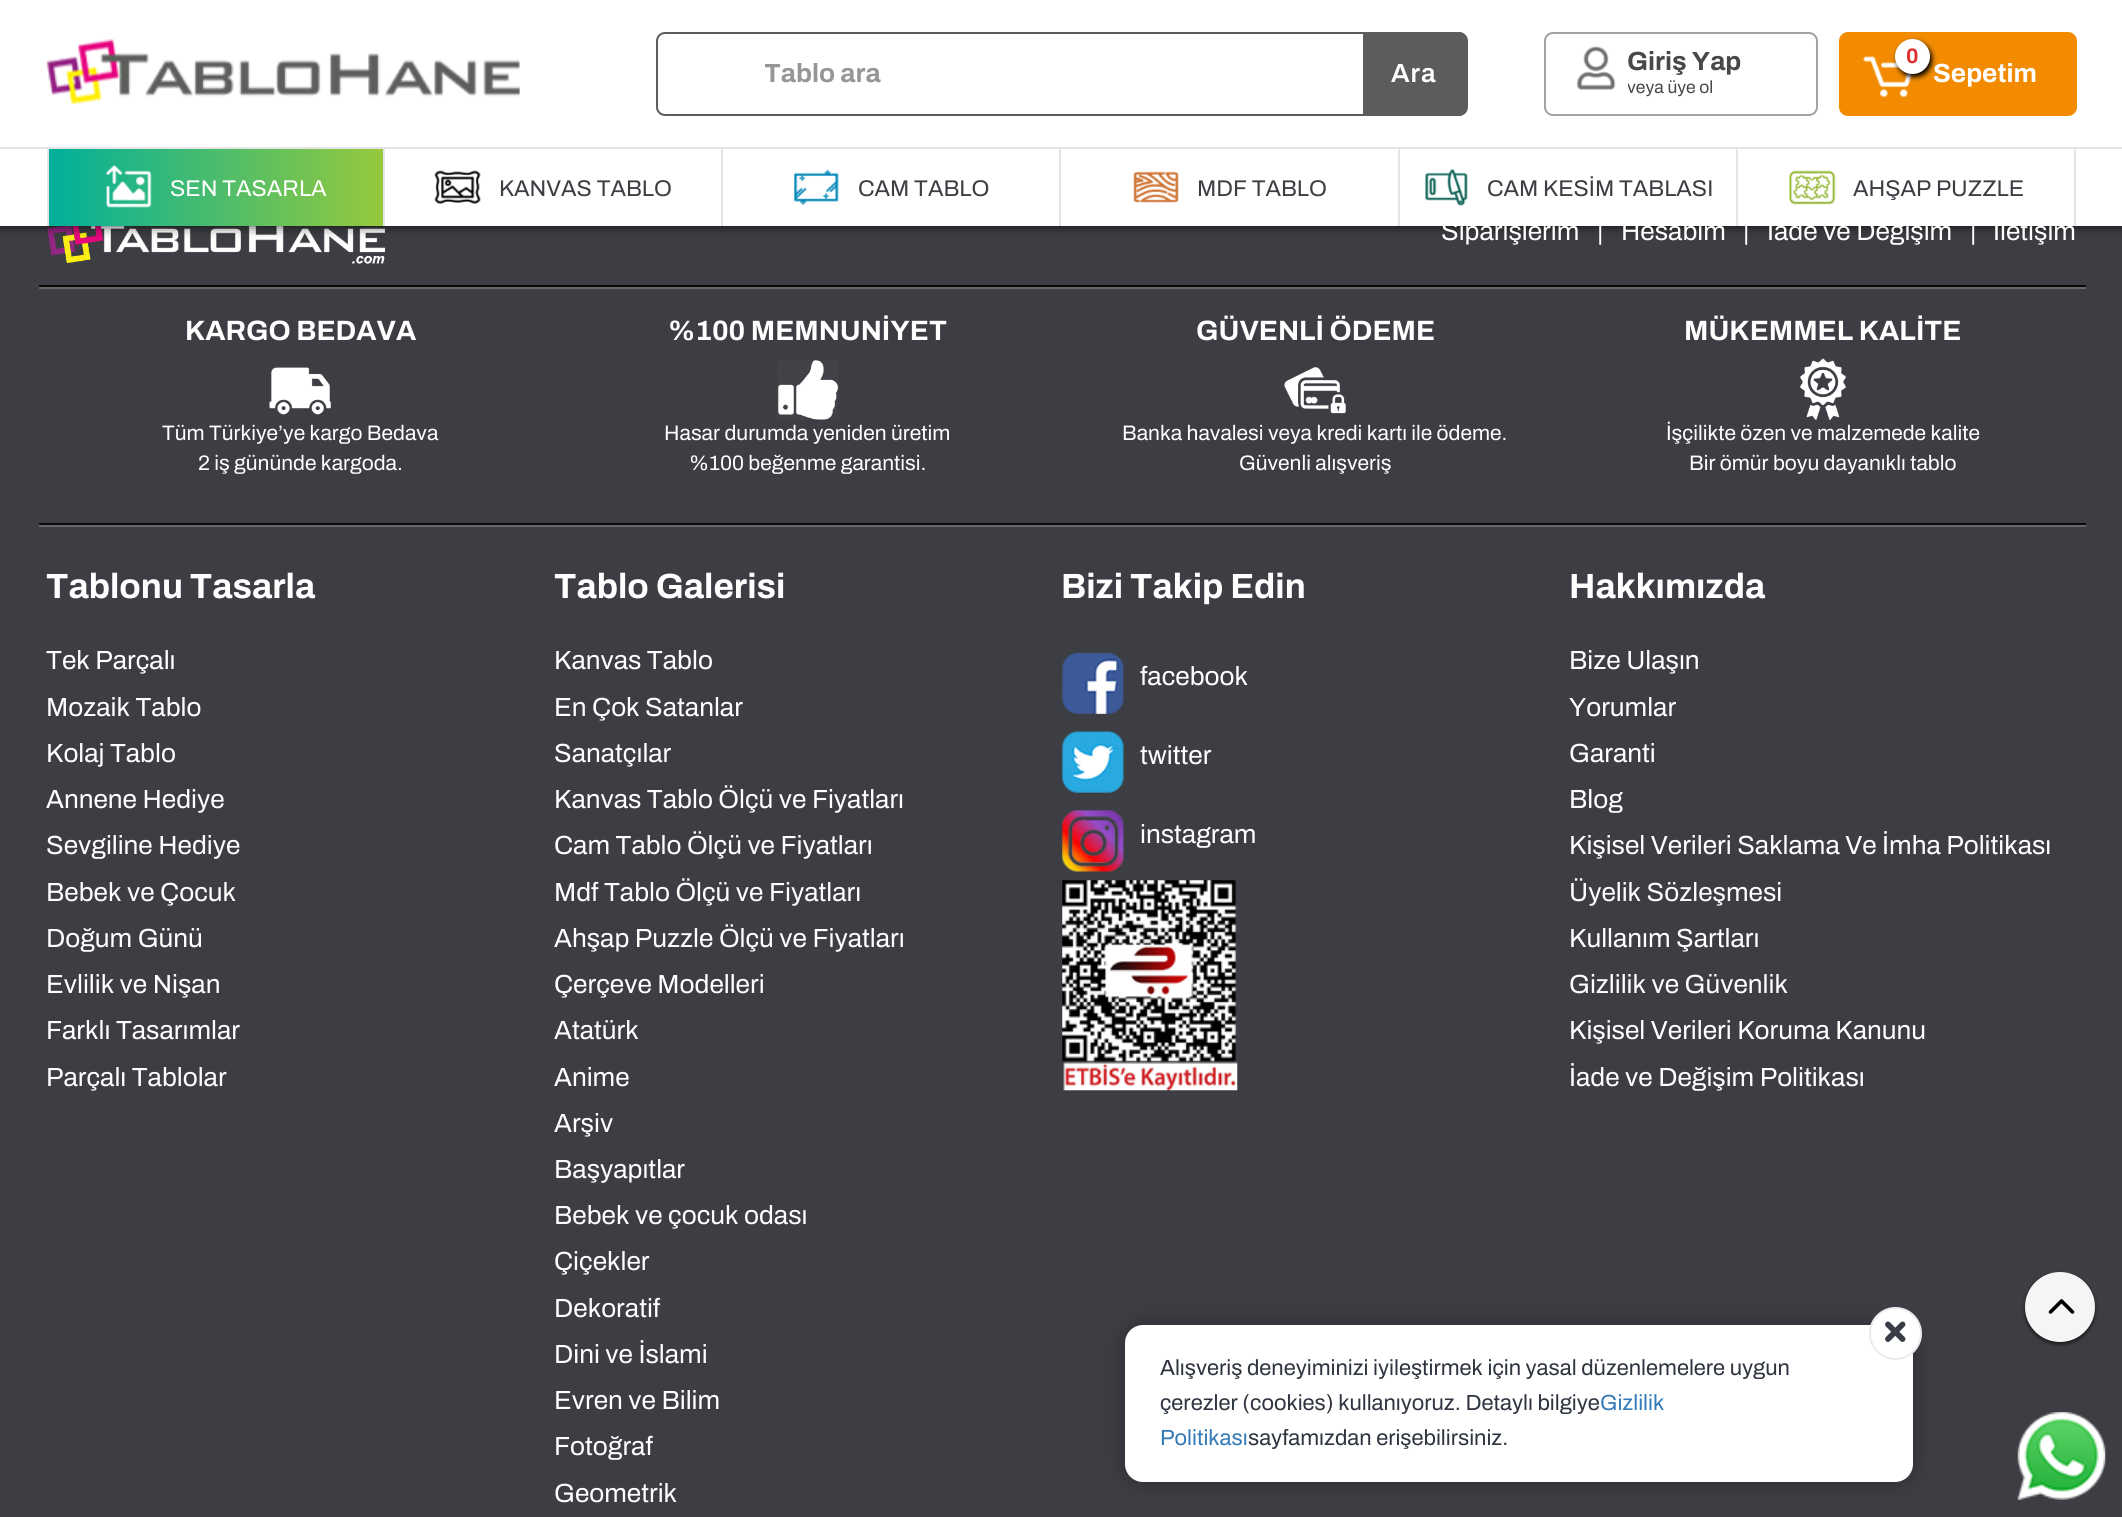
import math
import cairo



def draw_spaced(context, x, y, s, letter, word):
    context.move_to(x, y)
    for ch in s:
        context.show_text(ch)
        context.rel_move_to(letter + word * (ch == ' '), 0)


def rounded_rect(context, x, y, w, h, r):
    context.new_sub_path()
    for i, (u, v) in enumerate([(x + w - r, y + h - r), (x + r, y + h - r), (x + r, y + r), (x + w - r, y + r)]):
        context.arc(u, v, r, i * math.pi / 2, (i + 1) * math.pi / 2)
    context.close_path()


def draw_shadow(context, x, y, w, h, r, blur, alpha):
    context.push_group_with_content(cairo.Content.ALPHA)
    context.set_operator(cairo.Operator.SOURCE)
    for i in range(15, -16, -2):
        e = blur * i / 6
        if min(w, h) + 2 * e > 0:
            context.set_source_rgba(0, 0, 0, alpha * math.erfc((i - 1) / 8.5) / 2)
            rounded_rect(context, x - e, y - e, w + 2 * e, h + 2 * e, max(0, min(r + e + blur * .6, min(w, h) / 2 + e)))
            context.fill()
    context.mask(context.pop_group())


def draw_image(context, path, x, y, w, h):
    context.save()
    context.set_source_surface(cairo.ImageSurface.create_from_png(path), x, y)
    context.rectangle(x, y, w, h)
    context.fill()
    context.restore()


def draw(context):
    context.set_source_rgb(61 / 255, 62 / 255, 67 / 255)
    context.paint()
    draw_image(context, "images/10.png", 47, 226, 338, 38)
    context.set_source_rgb(0, 0, 0)
    draw_shadow(context, 0, 0, 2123, 226, 0, 6, 0.8)
    context.set_source_rgb(1, 1, 1)
    context.rectangle(0, 0, 2122, 226)
    context.fill()
    draw_image(context, "images/1.png", 46, 39, 474, 65)
    rounded_rect(context, 657, 33, 810, 82, 8)
    context.set_source_rgb(92 / 255, 92 / 255, 92 / 255)
    context.stroke()
    context.new_path()
    context.move_to(1363, 32)
    context.line_to(1458, 32)
    context.curve_to(1463, 32, 1467, 36, 1467, 41)
    context.line_to(1467, 107)
    context.curve_to(1467, 112, 1463, 116, 1458, 116)
    context.line_to(1363, 116)
    context.close_path()
    context.fill()
    rounded_rect(context, 1545, 33, 272, 82, 8)
    context.set_source_rgb(162 / 255, 162 / 255, 162 / 255)
    context.stroke()
    draw_image(context, "images/2.png", 1576, 46, 40, 44)
    context.set_source_rgb(242 / 255, 139 / 255, 0)
    rounded_rect(context, 1839, 32, 238, 84, 9)
    context.fill()
    draw_image(context, "images/3.png", 1863, 56, 50, 42)
    context.set_source_rgb(0, 0, 0)
    draw_shadow(context, 1897, 42, 35, 35, 17.5, 2.5, 1)
    context.set_source_rgb(1, 1, 1)
    context.arc(1912.5, 56.5, 15.5, 0, 2 * math.pi)
    context.fill_preserve()
    context.set_line_width(4)
    context.stroke()
    context.set_source_rgb(229 / 255, 229 / 255, 229 / 255)
    context.rectangle(0, 147, 2122, 2)
    context.fill()
    context.rectangle(383, 149, 2, 77)
    context.fill()
    gradient = cairo.LinearGradient(49, 187, 383, 187)
    gradient.add_color_stop_rgba(0, 0, 176 / 255, 155 / 255, 1)
    gradient.add_color_stop_rgba(1, 150 / 255, 201 / 255, 61 / 255, 1)
    context.set_source(gradient)
    context.rectangle(49, 149, 334, 77)
    context.fill()
    context.set_source_rgb(229 / 255, 229 / 255, 229 / 255)
    context.rectangle(47, 149, 2, 77)
    context.fill()
    draw_image(context, "images/4.png", 106, 164, 46, 44)
    context.rectangle(721, 149, 2, 77)
    context.fill()
    draw_image(context, "images/5.png", 434, 170, 47, 34)
    context.rectangle(1059, 149, 2, 77)
    context.fill()
    draw_image(context, "images/6.png", 794, 169, 45, 36)
    context.rectangle(1398, 149, 2, 77)
    context.fill()
    draw_image(context, "images/7.png", 1133, 171, 46, 32)
    context.rectangle(1736, 149, 2, 77)
    context.fill()
    draw_image(context, "images/8.png", 1425, 168, 43, 38)
    draw_image(context, "images/9.png", 1789, 170, 47, 35)
    context.set_source_rgb(10 / 255, 10 / 255, 10 / 255)
    context.rectangle(39, 285, 2047, 2)
    context.fill()
    context.set_source_rgb(103 / 255, 103 / 255, 103 / 255)
    context.rectangle(39, 287, 2047, 2)
    context.fill()
    context.set_source_rgb(10 / 255, 10 / 255, 10 / 255)
    context.rectangle(39, 523, 2047, 2)
    context.fill()
    draw_image(context, "images/11.png", 269, 367, 62, 48)
    draw_image(context, "images/12.png", 777, 359, 62, 61)
    draw_image(context, "images/13.png", 1284, 367, 62, 47)
    draw_image(context, "images/14.png", 1800, 358, 46, 62)
    context.set_source_rgb(103 / 255, 103 / 255, 103 / 255)
    context.rectangle(39, 525, 2047, 2)
    context.fill()
    draw_image(context, "images/15.png", 1062, 652, 62, 62)
    draw_image(context, "images/16.png", 1062, 731, 62, 62)
    draw_image(context, "images/17.png", 1062, 810, 62, 62)
    draw_image(context, "images/18.png", 1062, 880, 176, 211)
    context.set_source_rgb(0, 0, 0)
    draw_shadow(context, 2025, 1274, 70, 70, 35, 2, 0.68)
    context.set_source_rgb(245 / 255, 245 / 255, 245 / 255)
    context.arc(2060, 1307, 35, 0, 2 * math.pi)
    context.fill()
    context.new_path()
    context.move_to(2050.5, 1312)
    context.line_to(2061.5, 1301)
    context.line_to(2072.5, 1312)
    context.set_source_rgb(0, 0, 0)
    context.set_line_width(3.6)
    context.set_line_cap(cairo.LineCap.ROUND)
    context.set_line_join(cairo.LineJoin.ROUND)
    context.stroke()
    context.set_source_rgb(0, 0, 0)
    draw_shadow(context, 1125, 1325, 788, 157, 18, 10.5, 0.3)
    context.set_source_rgb(1, 1, 1)
    rounded_rect(context, 1125, 1325, 788, 157, 18)
    context.fill()
    context.arc(1895.5, 1333.5, 26.5, 0, 2 * math.pi)
    context.fill()
    context.arc(1895.5, 1333.5, 25.5, 0, 2 * math.pi)
    context.set_source_rgba(46 / 255, 52 / 255, 64 / 255, 0.1)
    context.set_line_width(2)
    context.set_line_cap(cairo.LineCap.BUTT)
    context.set_line_join(cairo.LineJoin.MITER)
    context.stroke()
    draw_image(context, "images/19.png", 1885, 1321, 21, 21)
    draw_image(context, "images/20.png", 2017, 1412, 89, 88)
    context.save()
    context.rectangle(765, 60, 591, 28)
    context.clip()
    context.select_font_face("Archivo", cairo.FontSlant.NORMAL, cairo.FontWeight.BOLD)
    context.set_font_size(26.25)
    context.set_source_rgb(150 / 255, 150 / 255, 150 / 255)
    context.move_to(764, 82)
    context.show_text("Tablo ara")
    context.restore()
    context.select_font_face("Archivo SemiBold")
    context.set_font_size(26.25)
    context.set_source_rgb(1, 1, 1)
    draw_spaced(context, 1391, 82, "Ara", 1, 0)
    context.select_font_face("Archivo", cairo.FontSlant.NORMAL, cairo.FontWeight.BOLD)
    context.set_source_rgb(72 / 255, 72 / 255, 72 / 255)
    context.move_to(1627, 70)
    context.show_text("Giriş Yap")
    context.save()
    context.rectangle(1628, 75, 110, 25)
    context.clip()
    context.select_font_face("Archivo")
    context.set_font_size(17.5)
    context.move_to(1627, 93)
    context.show_text("veya üye ol")
    context.restore()
    context.set_font_size(21)
    context.set_source_rgb(222 / 255, 46 / 255, 46 / 255)
    context.move_to(1906, 63)
    context.show_text("0")
    context.set_font_size(26.25)
    context.set_source_rgb(1, 1, 1)
    context.move_to(1933, 82)
    context.show_text("Sepetim")
    context.select_font_face("Archivo")
    context.set_font_size(22.75)
    context.move_to(170, 196)
    context.show_text("SEN TASARLA")
    context.set_source_rgb(61 / 255, 62 / 255, 67 / 255)
    context.move_to(499, 196)
    context.show_text("KANVAS TABLO")
    context.move_to(858, 196)
    context.show_text("CAM TABLO")
    context.move_to(1197, 196)
    context.show_text("MDF TABLO")
    context.move_to(1487, 196)
    context.show_text("CAM KESİM TABLASI")
    context.move_to(1853, 196)
    context.show_text("AHŞAP PUZZLE")
    context.set_font_size(26.25)
    context.set_source_rgb(1, 1, 1)
    context.move_to(1441, 240)
    context.show_text("Siparişlerim")
    context.move_to(1597, 240)
    context.show_text("|")
    context.move_to(1621, 240)
    context.show_text("Hesabım")
    context.move_to(1743, 240)
    context.show_text("|")
    context.move_to(1767, 240)
    context.show_text("İade ve Değişim")
    context.move_to(1970, 240)
    context.show_text("|")
    context.move_to(1993, 240)
    context.show_text("İletişim")
    context.set_source_rgb(229 / 255, 229 / 255, 229 / 255)
    context.rectangle(2074, 149, 2, 77)
    context.fill()
    context.select_font_face("Archivo", cairo.FontSlant.NORMAL, cairo.FontWeight.BOLD)
    context.set_font_size(28)
    context.set_source_rgb(1, 1, 1)
    context.move_to(185, 340)
    context.show_text("KARGO BEDAVA")
    context.select_font_face("Archivo")
    context.set_font_size(21)
    context.move_to(162, 440)
    context.show_text("Tüm Türkiye’ye kargo Bedava")
    context.move_to(198, 470)
    context.show_text("2 iş gününde kargoda.")
    context.select_font_face("Archivo", cairo.FontSlant.NORMAL, cairo.FontWeight.BOLD)
    context.set_font_size(28)
    context.move_to(668, 340)
    context.show_text("%100 MEMNUNİYET")
    context.select_font_face("Archivo")
    context.set_font_size(21)
    context.move_to(664, 440)
    context.show_text("Hasar durumda yeniden üretim")
    context.move_to(689, 470)
    context.show_text("%100 beğenme garantisi.")
    context.select_font_face("Archivo", cairo.FontSlant.NORMAL, cairo.FontWeight.BOLD)
    context.set_font_size(28)
    context.move_to(1196, 340)
    context.show_text("GÜVENLİ ÖDEME")
    context.select_font_face("Archivo")
    context.set_font_size(21)
    context.move_to(1122, 440)
    context.show_text("Banka havalesi veya kredi kartı ile ödeme.")
    context.move_to(1239, 470)
    context.show_text("Güvenli alışveriş")
    context.select_font_face("Archivo", cairo.FontSlant.NORMAL, cairo.FontWeight.BOLD)
    context.set_font_size(28)
    context.move_to(1684, 340)
    context.show_text("MÜKEMMEL KALİTE")
    context.select_font_face("Archivo")
    context.set_font_size(21)
    context.move_to(1666, 440)
    context.show_text("İşçilikte özen ve malzemede kalite")
    context.move_to(1689, 470)
    context.show_text("Bir ömür boyu dayanıklı tablo")
    context.select_font_face("Archivo", cairo.FontSlant.NORMAL, cairo.FontWeight.BOLD)
    context.set_font_size(35)
    context.move_to(46, 598)
    context.show_text("Tablonu Tasarla")
    context.select_font_face("Archivo")
    context.set_font_size(26.25)
    context.move_to(46, 669)
    context.show_text("Tek Parçalı")
    context.move_to(46, 716)
    context.show_text("Mozaik Tablo")
    context.move_to(46, 762)
    context.show_text("Kolaj Tablo")
    context.move_to(46, 808)
    context.show_text("Annene Hediye")
    context.move_to(46, 854)
    context.show_text("Sevgiline Hediye")
    context.move_to(46, 901)
    context.show_text("Bebek ve Çocuk")
    context.move_to(46, 947)
    context.show_text("Doğum Günü")
    context.move_to(46, 993)
    context.show_text("Evlilik ve Nişan")
    context.move_to(46, 1039)
    context.show_text("Farklı Tasarımlar")
    context.move_to(46, 1086)
    context.show_text("Parçalı Tablolar")
    context.select_font_face("Archivo", cairo.FontSlant.NORMAL, cairo.FontWeight.BOLD)
    context.set_font_size(35)
    context.move_to(554, 598)
    context.show_text("Tablo Galerisi")
    context.select_font_face("Archivo")
    context.set_font_size(26.25)
    context.move_to(554, 669)
    context.show_text("Kanvas Tablo")
    context.move_to(554, 716)
    context.show_text("En Çok Satanlar")
    context.move_to(554, 762)
    context.show_text("Sanatçılar")
    context.move_to(554, 808)
    context.show_text("Kanvas Tablo Ölçü ve Fiyatları")
    context.move_to(554, 854)
    context.show_text("Cam Tablo Ölçü ve Fiyatları")
    context.move_to(554, 901)
    context.show_text("Mdf Tablo Ölçü ve Fiyatları")
    context.move_to(554, 947)
    context.show_text("Ahşap Puzzle Ölçü ve Fiyatları")
    context.move_to(554, 993)
    context.show_text("Çerçeve Modelleri")
    context.move_to(554, 1039)
    context.show_text("Atatürk")
    context.move_to(554, 1086)
    context.show_text("Anime")
    context.move_to(554, 1132)
    context.show_text("Arşiv")
    context.move_to(554, 1178)
    context.show_text("Başyapıtlar")
    context.move_to(554, 1224)
    context.show_text("Bebek ve çocuk odası")
    context.move_to(554, 1270)
    context.show_text("Çiçekler")
    context.move_to(554, 1317)
    context.show_text("Dekoratif")
    context.move_to(554, 1363)
    context.show_text("Dini ve İslami")
    context.move_to(554, 1409)
    context.show_text("Evren ve Bilim")
    context.move_to(554, 1455)
    context.show_text("Fotoğraf")
    context.move_to(554, 1502)
    context.show_text("Geometrik")
    context.select_font_face("Archivo", cairo.FontSlant.NORMAL, cairo.FontWeight.BOLD)
    context.set_font_size(35)
    context.move_to(1061, 598)
    context.show_text("Bizi Takip Edin")
    context.select_font_face("Archivo")
    context.set_font_size(26.25)
    context.move_to(1140, 685)
    context.show_text("facebook")
    context.move_to(1140, 764)
    context.show_text("twitter")
    context.move_to(1140, 843)
    context.show_text("instagram")
    context.select_font_face("Archivo", cairo.FontSlant.NORMAL, cairo.FontWeight.BOLD)
    context.set_font_size(35)
    context.move_to(1569, 598)
    context.show_text("Hakkımızda")
    context.select_font_face("Archivo")
    context.set_font_size(26.25)
    context.move_to(1569, 669)
    context.show_text("Bize Ulaşın")
    context.move_to(1569, 716)
    context.show_text("Yorumlar")
    context.move_to(1569, 762)
    context.show_text("Garanti")
    context.move_to(1569, 808)
    context.show_text("Blog")
    context.move_to(1569, 854)
    context.show_text("Kişisel Verileri Saklama Ve İmha Politikası")
    context.move_to(1569, 901)
    context.show_text("Üyelik Sözleşmesi")
    context.move_to(1569, 947)
    context.show_text("Kullanım Şartları")
    context.move_to(1569, 993)
    context.show_text("Gizlilik ve Güvenlik")
    context.move_to(1569, 1039)
    context.show_text("Kişisel Verileri Koruma Kanunu")
    context.move_to(1569, 1086)
    context.show_text("İade ve Değişim Politikası")
    context.set_font_size(21.9)
    context.set_source_rgb(46 / 255, 52 / 255, 64 / 255)
    context.move_to(1160, 1375)
    context.show_text("Alışveriş deneyiminizi iyileştirmek için yasal düzenlemelere uygun")
    context.move_to(1160, 1410)
    context.show_text("çerezler (cookies) kullanıyoruz. Detaylı bilgiye")
    context.set_source_rgb(51 / 255, 122 / 255, 183 / 255)
    context.move_to(1600, 1410)
    context.show_text("Gizlilik")
    context.move_to(1160, 1445)
    context.show_text("Politikası")
    context.set_source_rgb(46 / 255, 52 / 255, 64 / 255)
    context.move_to(1248, 1445)
    context.show_text("sayfamızdan erişebilirsiniz.")


surface = cairo.ImageSurface(cairo.Format.RGB24, 2122, 1517)
context = cairo.Context(surface)
options = cairo.FontOptions()
options.set_hint_metrics(cairo.HintMetrics.OFF)
options.set_hint_style(cairo.HintStyle.NONE)
context.set_font_options(options)
context.set_miter_limit(4)
draw(context)
surface.write_to_png("out.png")
